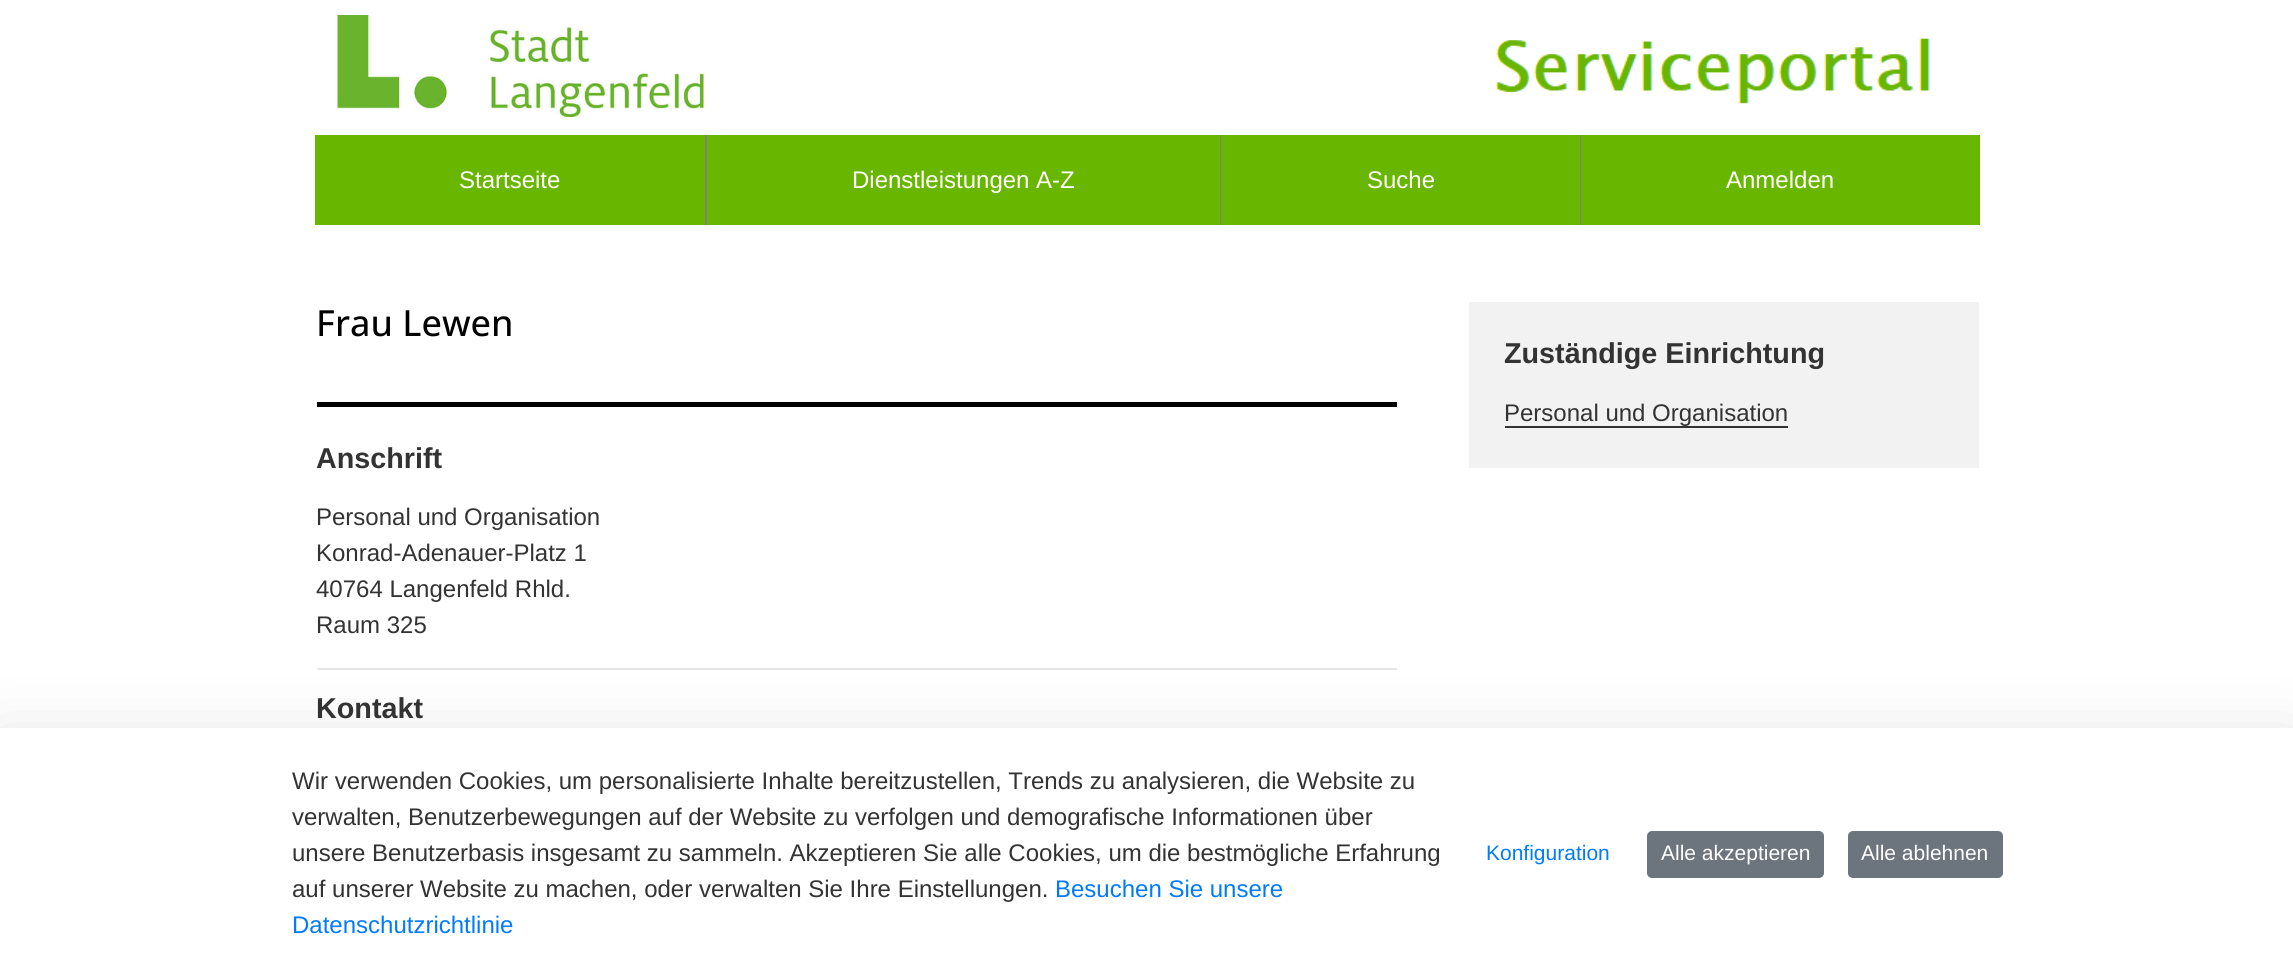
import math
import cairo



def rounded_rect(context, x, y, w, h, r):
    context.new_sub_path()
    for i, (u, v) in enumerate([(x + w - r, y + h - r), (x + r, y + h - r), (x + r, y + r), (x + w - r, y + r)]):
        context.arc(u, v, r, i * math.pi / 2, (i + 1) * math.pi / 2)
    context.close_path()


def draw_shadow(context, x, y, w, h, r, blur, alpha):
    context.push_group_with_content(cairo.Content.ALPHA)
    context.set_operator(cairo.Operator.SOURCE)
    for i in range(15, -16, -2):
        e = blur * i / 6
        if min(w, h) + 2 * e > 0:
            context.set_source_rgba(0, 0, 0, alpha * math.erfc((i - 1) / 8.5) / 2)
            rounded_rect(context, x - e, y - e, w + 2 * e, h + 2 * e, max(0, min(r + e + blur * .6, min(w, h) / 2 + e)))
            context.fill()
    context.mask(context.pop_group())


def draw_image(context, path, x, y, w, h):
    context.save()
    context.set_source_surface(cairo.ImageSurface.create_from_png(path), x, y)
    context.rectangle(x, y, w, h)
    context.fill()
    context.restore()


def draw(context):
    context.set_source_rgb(1, 1, 1)
    context.paint()
    draw_image(context, "images/1.png", 337, 15, 367, 102)
    draw_image(context, "images/2.png", 1496, 38, 434, 66)
    context.set_source_rgb(104 / 255, 182 / 255, 0)
    context.rectangle(315, 135, 905, 90)
    context.fill()
    context.set_source_rgb(128 / 255, 128 / 255, 128 / 255)
    context.rectangle(705, 135, 2, 90)
    context.fill()
    context.rectangle(1220, 135, 1, 90)
    context.fill()
    context.set_source_rgb(104 / 255, 182 / 255, 0)
    context.rectangle(1221, 135, 359, 90)
    context.fill()
    context.set_source_rgb(128 / 255, 128 / 255, 128 / 255)
    context.rectangle(1580, 135, 1, 90)
    context.fill()
    context.set_source_rgb(104 / 255, 182 / 255, 0)
    context.rectangle(1581, 135, 399, 90)
    context.fill()
    context.set_source_rgb(0, 0, 0)
    context.rectangle(317, 402, 1080, 5)
    context.fill()
    context.set_source_rgb(230 / 255, 230 / 255, 230 / 255)
    context.rectangle(317, 668, 1080, 2)
    context.fill()
    context.set_source_rgb(242 / 255, 242 / 255, 242 / 255)
    context.rectangle(1469, 302, 510, 166)
    context.fill()
    context.set_source_rgb(51 / 255, 51 / 255, 51 / 255)
    context.rectangle(1505, 426, 283, 2)
    context.fill()
    context.set_source_rgb(0, 0, 0)
    draw_shadow(context, 0, 752, 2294, 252, 0, 36, 0.18)
    context.set_source_rgb(1, 1, 1)
    context.rectangle(0, 728, 2293, 251)
    context.fill()
    context.set_source_rgb(108 / 255, 117 / 255, 125 / 255)
    rounded_rect(context, 1648, 832, 175, 45, 4)
    context.fill_preserve()
    context.stroke()
    rounded_rect(context, 1849, 832, 153, 45, 4)
    context.fill_preserve()
    context.stroke()
    context.select_font_face("Liberation Sans")
    context.set_font_size(24)
    context.set_source_rgb(1, 1, 1)
    context.move_to(459, 188)
    context.show_text("Startseite")
    context.move_to(852, 188)
    context.show_text("Dienstleistungen A-Z")
    context.move_to(1367, 188)
    context.show_text("Suche")
    context.move_to(1726, 188)
    context.show_text("Anmelden")
    context.select_font_face("Open Sans Medium")
    context.set_font_size(36)
    context.set_source_rgb(0, 0, 0)
    context.move_to(316, 336)
    context.show_text("Frau Lewen")
    context.select_font_face("Liberation Sans", cairo.FontSlant.NORMAL, cairo.FontWeight.BOLD)
    context.set_font_size(28.75)
    context.set_source_rgb(51 / 255, 51 / 255, 51 / 255)
    context.move_to(316, 468)
    context.show_text("Anschrift")
    context.select_font_face("Liberation Sans")
    context.set_font_size(24)
    context.move_to(316, 525)
    context.show_text("Personal und Organisation")
    context.move_to(316, 561)
    context.show_text("Konrad-Adenauer-Platz 1")
    context.move_to(316, 597)
    context.show_text("40764 Langenfeld Rhld.")
    context.move_to(316, 633)
    context.show_text("Raum 325")
    context.select_font_face("Liberation Sans", cairo.FontSlant.NORMAL, cairo.FontWeight.BOLD)
    context.set_font_size(28.75)
    context.move_to(316, 718)
    context.show_text("Kontakt")
    context.move_to(1504, 363)
    context.show_text("Zuständige Einrichtung")
    context.select_font_face("Liberation Sans")
    context.set_font_size(24)
    context.move_to(1504, 421)
    context.show_text("Personal und Organisation")
    context.move_to(292, 789)
    context.show_text("Wir verwenden Cookies, um personalisierte Inhalte bereitzustellen, Trends zu analysieren, die Website zu")
    context.move_to(292, 825)
    context.show_text("verwalten, Benutzerbewegungen auf der Website zu verfolgen und demografische Informationen über")
    context.move_to(292, 861)
    context.show_text("unsere Benutzerbasis insgesamt zu sammeln. Akzeptieren Sie alle Cookies, um die bestmögliche Erfahrung")
    context.move_to(292, 897)
    context.show_text("auf unserer Website zu machen, oder verwalten Sie Ihre Einstellungen.")
    context.set_source_rgb(0, 123 / 255, 1)
    context.move_to(1055, 897)
    context.show_text("Besuchen Sie unsere")
    context.move_to(292, 933)
    context.show_text("Datenschutzrichtlinie")
    context.set_font_size(21)
    context.move_to(1486, 860)
    context.show_text("Konfiguration")
    context.set_source_rgb(1, 1, 1)
    context.move_to(1661, 860)
    context.show_text("Alle akzeptieren")
    context.move_to(1861, 860)
    context.show_text("Alle ablehnen")


surface = cairo.ImageSurface(cairo.Format.RGB24, 2293, 979)
context = cairo.Context(surface)
options = cairo.FontOptions()
options.set_hint_metrics(cairo.HintMetrics.OFF)
options.set_hint_style(cairo.HintStyle.NONE)
context.set_font_options(options)
context.set_miter_limit(4)
draw(context)
surface.write_to_png("out.png")
